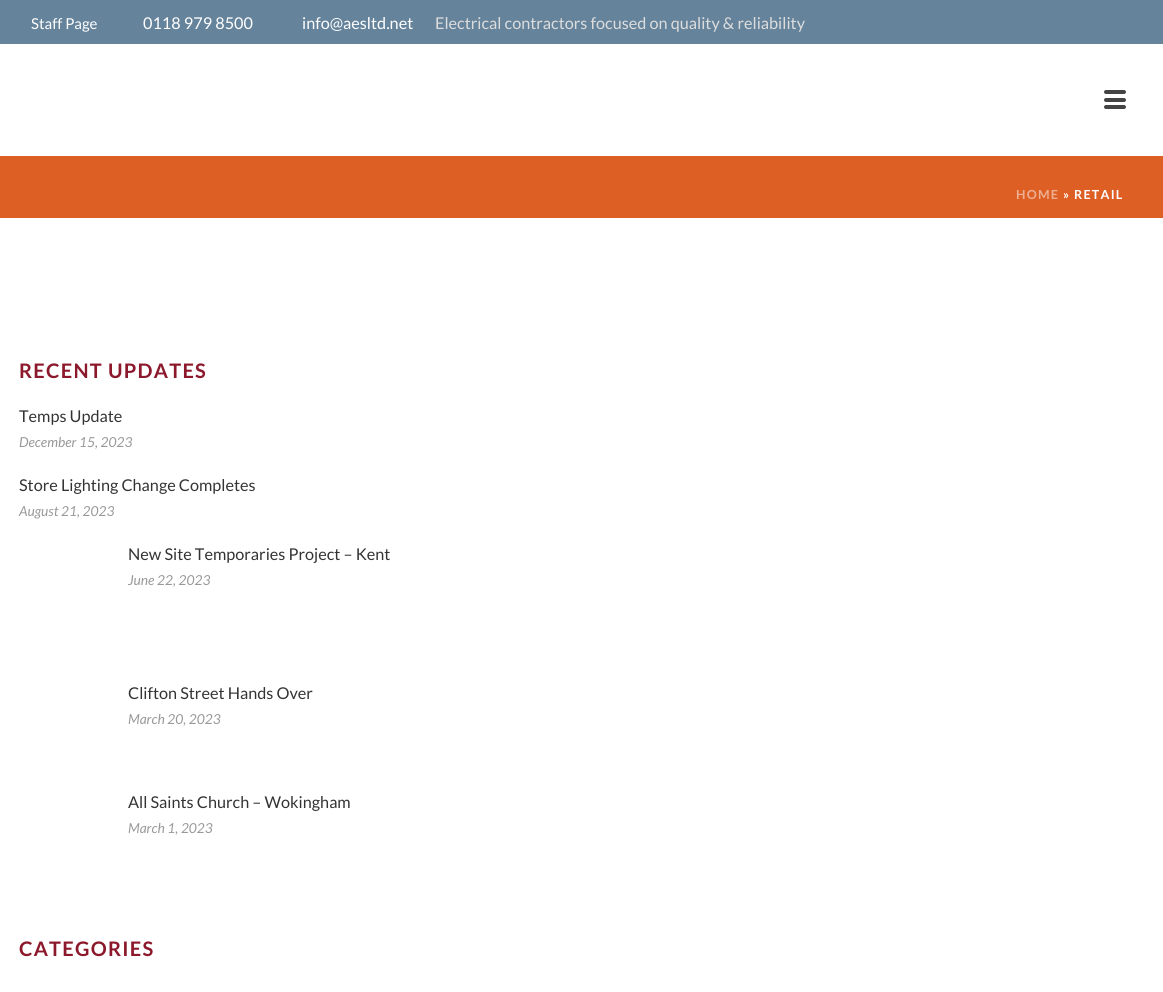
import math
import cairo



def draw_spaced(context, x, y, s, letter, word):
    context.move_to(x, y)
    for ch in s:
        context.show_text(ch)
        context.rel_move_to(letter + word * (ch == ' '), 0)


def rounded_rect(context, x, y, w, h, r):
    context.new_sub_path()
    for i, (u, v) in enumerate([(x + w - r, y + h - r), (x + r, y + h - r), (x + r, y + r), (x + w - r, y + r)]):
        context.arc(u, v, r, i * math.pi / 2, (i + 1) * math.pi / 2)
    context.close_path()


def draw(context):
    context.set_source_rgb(1, 1, 1)
    context.paint()
    context.set_source_rgb(221 / 255, 95 / 255, 36 / 255)
    context.rectangle(0, 156, 1163, 62)
    context.fill()
    context.set_source_rgb(101 / 255, 131 / 255, 155 / 255)
    context.rectangle(0, 0, 1163, 44)
    context.fill()
    context.set_source_rgb(68 / 255, 68 / 255, 68 / 255)
    rounded_rect(context, 1104, 90, 22, 4, 2)
    context.fill()
    rounded_rect(context, 1104, 98, 22, 4, 2)
    context.fill()
    rounded_rect(context, 1104, 105, 22, 4, 2)
    context.fill()
    context.select_font_face("Lato")
    context.set_font_size(15)
    context.set_source_rgb(1, 1, 1)
    context.move_to(31, 29)
    context.show_text("Staff Page")
    context.set_font_size(16.25)
    context.move_to(143, 29)
    context.show_text("0118 979 8500")
    context.move_to(302, 29)
    context.show_text("info@aesltd.net")
    context.set_source_rgb(221 / 255, 221 / 255, 221 / 255)
    context.move_to(435, 29)
    context.show_text("Electrical contractors focused on quality & reliability")
    context.select_font_face("Lato", cairo.FontSlant.NORMAL, cairo.FontWeight.BOLD)
    context.set_font_size(12.5)
    context.set_source_rgb(238 / 255, 175 / 255, 146 / 255)
    draw_spaced(context, 1016, 199, "HOME", 1.25, 0)
    context.set_source_rgb(1, 1, 1)
    draw_spaced(context, 1063, 199, "» RETAIL", 1.25, 0)
    context.set_font_size(20)
    context.set_source_rgb(140 / 255, 24 / 255, 43 / 255)
    draw_spaced(context, 19, 378, "RECENT UPDATES", 1.25, 0)
    context.select_font_face("Lato")
    context.set_font_size(16.25)
    context.set_source_rgb(51 / 255, 51 / 255, 51 / 255)
    context.move_to(19, 422)
    context.show_text("Temps Update")
    context.select_font_face("Lato", cairo.FontSlant.ITALIC)
    context.set_font_size(13.75)
    context.set_source_rgb(153 / 255, 153 / 255, 153 / 255)
    context.move_to(19, 447)
    context.show_text("December 15, 2023")
    context.select_font_face("Lato")
    context.set_font_size(16.25)
    context.set_source_rgb(51 / 255, 51 / 255, 51 / 255)
    context.move_to(19, 491)
    context.show_text("Store Lighting Change Completes")
    context.select_font_face("Lato", cairo.FontSlant.ITALIC)
    context.set_font_size(13.75)
    context.set_source_rgb(153 / 255, 153 / 255, 153 / 255)
    context.move_to(19, 516)
    context.show_text("August 21, 2023")
    context.select_font_face("Lato")
    context.set_font_size(16.25)
    context.set_source_rgb(51 / 255, 51 / 255, 51 / 255)
    context.move_to(128, 560)
    context.show_text("New Site Temporaries Project – Kent")
    context.select_font_face("Lato", cairo.FontSlant.ITALIC)
    context.set_font_size(13.75)
    context.set_source_rgb(153 / 255, 153 / 255, 153 / 255)
    context.move_to(128, 585)
    context.show_text("June 22, 2023")
    context.select_font_face("Lato")
    context.set_font_size(16.25)
    context.set_source_rgb(51 / 255, 51 / 255, 51 / 255)
    context.move_to(128, 699)
    context.show_text("Clifton Street Hands Over")
    context.select_font_face("Lato", cairo.FontSlant.ITALIC)
    context.set_font_size(13.75)
    context.set_source_rgb(153 / 255, 153 / 255, 153 / 255)
    context.move_to(128, 724)
    context.show_text("March 20, 2023")
    context.select_font_face("Lato")
    context.set_font_size(16.25)
    context.set_source_rgb(51 / 255, 51 / 255, 51 / 255)
    context.move_to(128, 808)
    context.show_text("All Saints Church – Wokingham")
    context.select_font_face("Lato", cairo.FontSlant.ITALIC)
    context.set_font_size(13.75)
    context.set_source_rgb(153 / 255, 153 / 255, 153 / 255)
    context.move_to(128, 833)
    context.show_text("March 1, 2023")
    context.select_font_face("Lato", cairo.FontSlant.NORMAL, cairo.FontWeight.BOLD)
    context.set_font_size(20)
    context.set_source_rgb(140 / 255, 24 / 255, 43 / 255)
    draw_spaced(context, 19, 956, "CATEGORIES", 1.25, 0)


surface = cairo.ImageSurface(cairo.Format.RGB24, 1163, 992)
context = cairo.Context(surface)
options = cairo.FontOptions()
options.set_hint_metrics(cairo.HintMetrics.OFF)
options.set_hint_style(cairo.HintStyle.NONE)
context.set_font_options(options)
context.set_miter_limit(4)
draw(context)
surface.write_to_png("out.png")
